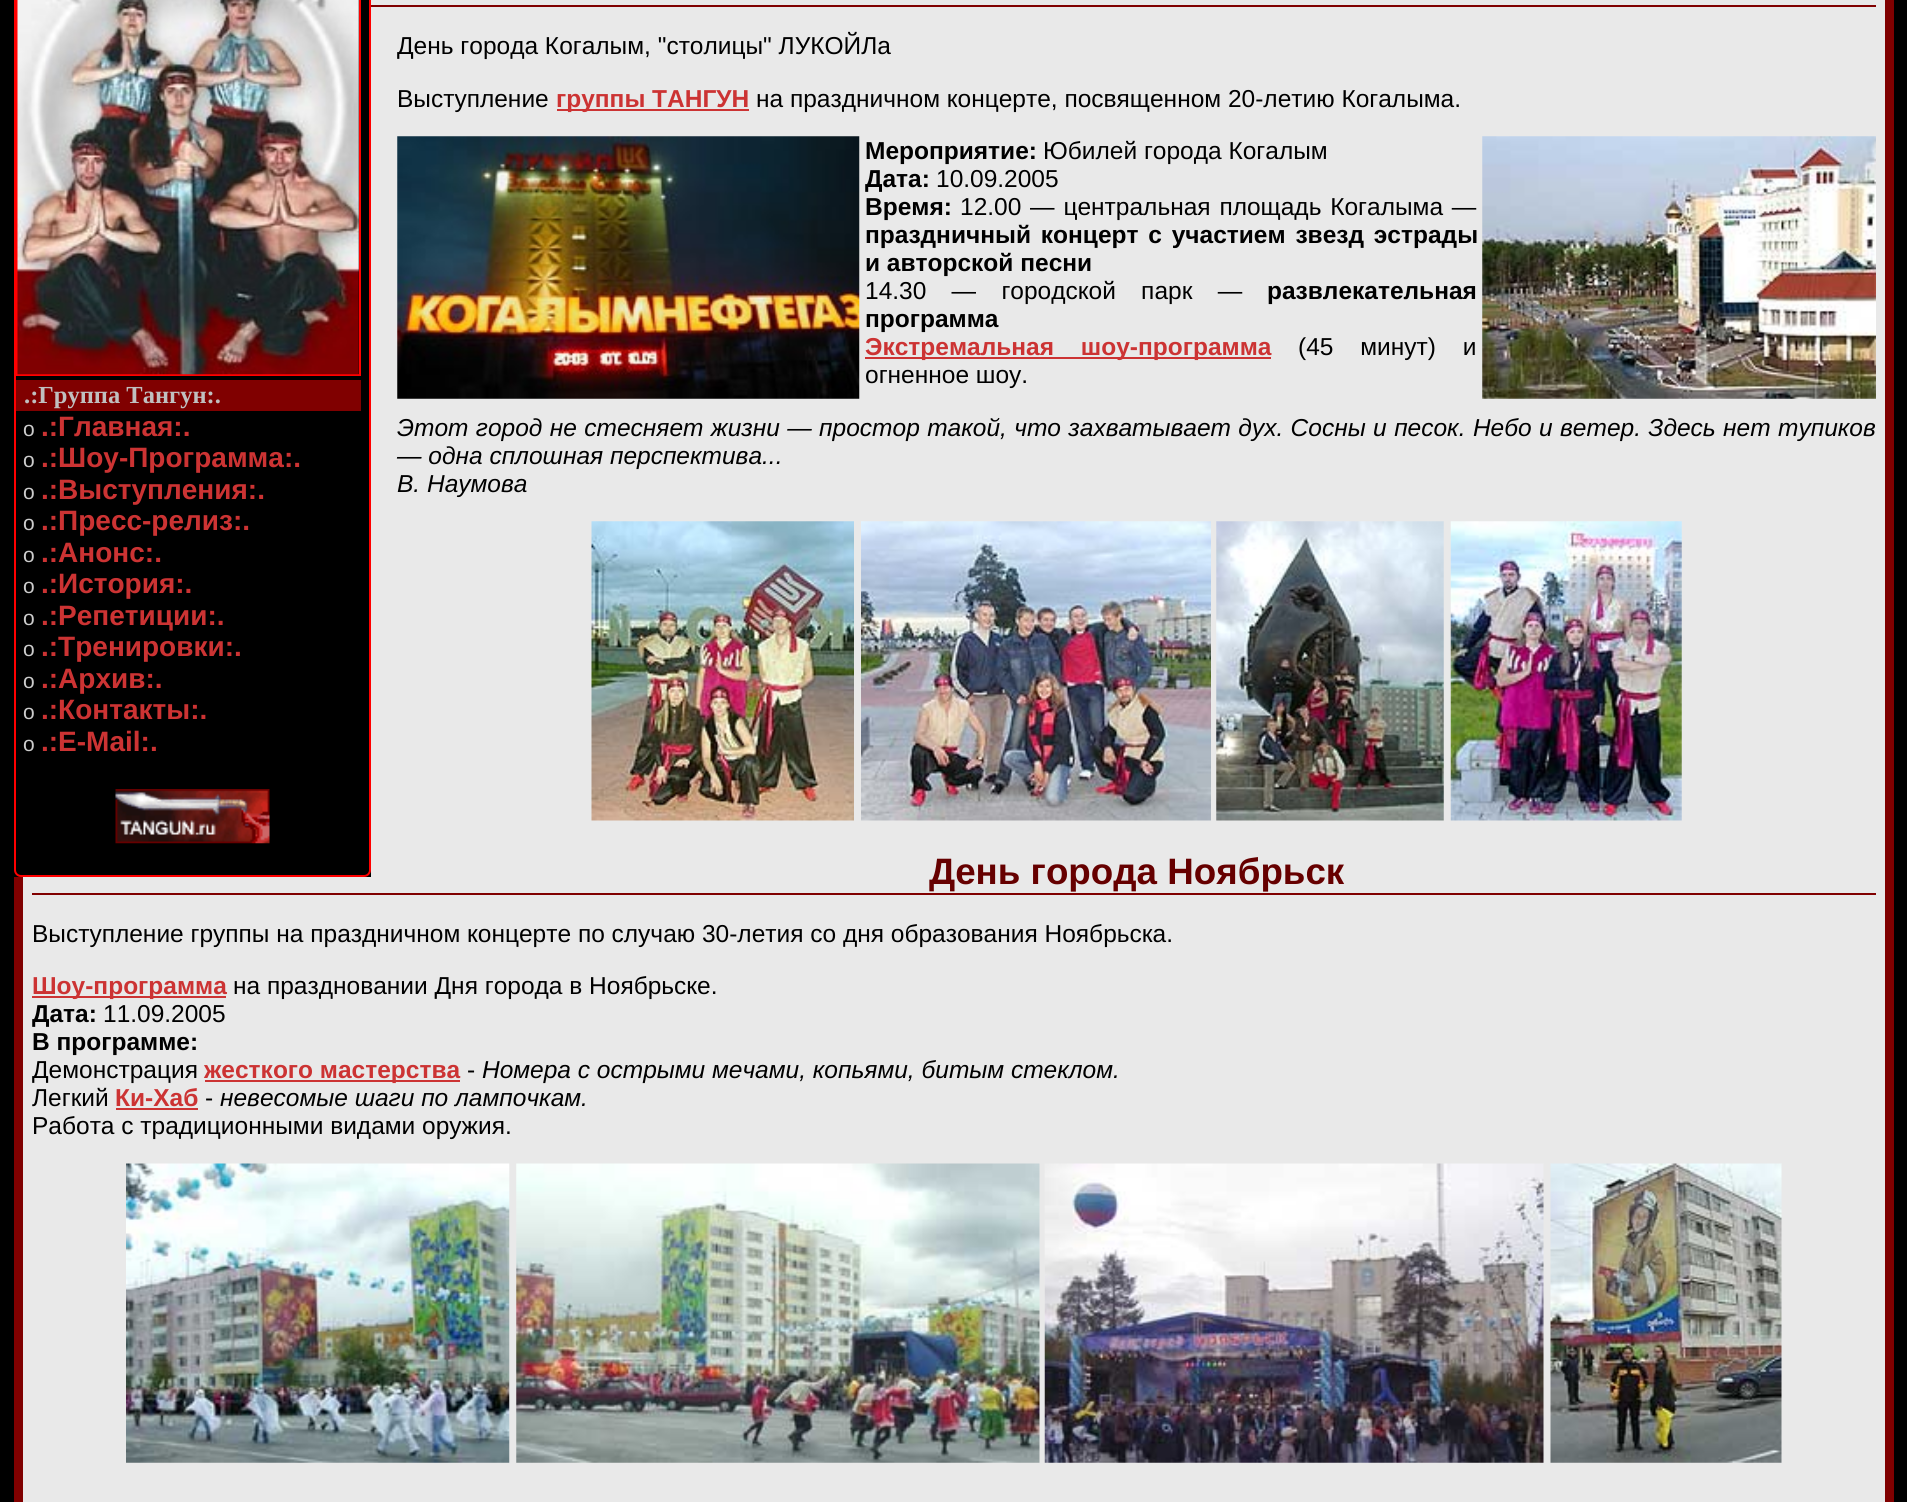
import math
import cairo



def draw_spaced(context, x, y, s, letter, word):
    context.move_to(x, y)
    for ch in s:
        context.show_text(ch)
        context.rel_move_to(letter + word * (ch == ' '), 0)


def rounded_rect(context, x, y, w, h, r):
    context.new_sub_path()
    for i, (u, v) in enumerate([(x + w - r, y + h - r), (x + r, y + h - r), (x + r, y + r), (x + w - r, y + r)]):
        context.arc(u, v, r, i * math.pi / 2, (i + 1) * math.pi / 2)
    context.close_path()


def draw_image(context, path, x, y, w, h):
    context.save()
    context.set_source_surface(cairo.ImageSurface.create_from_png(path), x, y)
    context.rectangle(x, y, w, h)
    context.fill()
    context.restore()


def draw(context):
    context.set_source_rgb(0, 0, 0)
    context.paint()
    context.set_source_rgb(128 / 255, 0, 0)
    context.rectangle(14, 0, 1880, 1502)
    context.fill()
    context.set_source_rgb(233 / 255, 233 / 255, 233 / 255)
    context.rectangle(23, 0, 1862, 1502)
    context.fill()
    context.set_source_rgb(128 / 255, 0, 0)
    context.rectangle(371, 5, 1505, 2)
    context.fill()
    context.set_source_rgb(204 / 255, 51 / 255, 51 / 255)
    context.rectangle(557, 109, 192, 2)
    context.fill()
    draw_image(context, "images/1.png", 397, 136, 463, 263)
    draw_image(context, "images/2.png", 1482, 136, 394, 263)
    context.rectangle(865, 357, 406, 2)
    context.fill()
    draw_image(context, "images/3.png", 591, 521, 263, 300)
    draw_image(context, "images/4.png", 861, 521, 350, 300)
    draw_image(context, "images/5.png", 1216, 521, 228, 300)
    draw_image(context, "images/6.png", 1450, 521, 232, 300)
    context.set_source_rgb(128 / 255, 0, 0)
    context.rectangle(32, 893, 1844, 2)
    context.fill()
    context.set_source_rgb(204 / 255, 51 / 255, 51 / 255)
    context.rectangle(32, 996, 194, 2)
    context.fill()
    context.rectangle(205, 1080, 255, 2)
    context.fill()
    context.rectangle(116, 1108, 82, 2)
    context.fill()
    draw_image(context, "images/7.png", 126, 1163, 384, 300)
    draw_image(context, "images/8.png", 516, 1163, 524, 300)
    draw_image(context, "images/9.png", 1044, 1163, 500, 300)
    draw_image(context, "images/10.png", 1550, 1163, 232, 300)
    context.set_source_rgb(0, 0, 0)
    context.rectangle(14, 0, 357, 877)
    context.fill()
    rounded_rect(context, 15, -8, 355, 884, 6)
    context.set_source_rgb(1, 0, 0)
    context.stroke()
    context.set_fill_rule(cairo.FillRule.EVEN_ODD)
    context.new_path()
    context.move_to(21, -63)
    context.curve_to(18, -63, 16, -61, 16, -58)
    context.line_to(16, 376)
    context.line_to(361, 376)
    context.line_to(361, -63)
    context.close_path()
    context.move_to(18, -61)
    context.line_to(18, 374)
    context.line_to(359, 374)
    context.line_to(359, -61)
    context.close_path()
    context.fill()
    draw_image(context, "images/11.png", 17, 0, 342, 375)
    context.set_source_rgb(128 / 255, 0, 0)
    context.rectangle(16, 380, 345, 31)
    context.fill()
    draw_image(context, "images/12.png", 115, 789, 155, 55)
    context.select_font_face("Liberation Sans")
    context.set_font_size(24.5)
    context.set_source_rgb(0, 0, 0)
    context.move_to(397, 54)
    context.show_text("День города Когалым, \"столицы\" ЛУКОЙЛа")
    context.move_to(397, 107)
    context.show_text("Выступление")
    context.select_font_face("Liberation Sans", cairo.FontSlant.NORMAL, cairo.FontWeight.BOLD)
    context.set_source_rgb(204 / 255, 51 / 255, 51 / 255)
    context.move_to(556, 107)
    context.show_text("группы ТАНГУН")
    context.select_font_face("Liberation Sans")
    context.set_source_rgb(0, 0, 0)
    context.move_to(756, 107)
    context.show_text("на праздничном концерте, посвященном 20-летию Когалыма.")
    context.select_font_face("Liberation Sans", cairo.FontSlant.NORMAL, cairo.FontWeight.BOLD)
    context.move_to(865, 159)
    context.show_text("Мероприятие:")
    context.select_font_face("Liberation Sans")
    context.move_to(1043, 159)
    context.show_text("Юбилей города Когалым")
    context.select_font_face("Liberation Sans", cairo.FontSlant.NORMAL, cairo.FontWeight.BOLD)
    context.move_to(865, 187)
    context.show_text("Дата:")
    context.select_font_face("Liberation Sans")
    context.move_to(936, 187)
    context.show_text("10.09.2005")
    context.select_font_face("Liberation Sans", cairo.FontSlant.NORMAL, cairo.FontWeight.BOLD)
    context.move_to(865, 215)
    context.show_text("Время:")
    context.select_font_face("Liberation Sans")
    draw_spaced(context, 960, 215, "12.00 — центральная площадь Когалыма —", 0, 2)
    context.select_font_face("Liberation Sans", cairo.FontSlant.NORMAL, cairo.FontWeight.BOLD)
    draw_spaced(context, 865, 243, "праздничный концерт с участием звезд эстрады", 0, 3)
    context.move_to(865, 271)
    context.show_text("и авторской песни")
    context.select_font_face("Liberation Sans")
    draw_spaced(context, 865, 299, "14.30 — городской парк —", 0, 18.5)
    context.select_font_face("Liberation Sans", cairo.FontSlant.NORMAL, cairo.FontWeight.BOLD)
    context.move_to(1267, 299)
    context.show_text("развлекательная")
    context.move_to(865, 327)
    context.show_text("программа")
    context.set_source_rgb(204 / 255, 51 / 255, 51 / 255)
    draw_spaced(context, 865, 355, "Экстремальная шоу-программа", 0, 20)
    context.select_font_face("Liberation Sans")
    context.set_source_rgb(0, 0, 0)
    draw_spaced(context, 1298, 355, "(45 минут) и", 0, 20)
    context.move_to(865, 383)
    context.show_text("огненное шоу.")
    context.select_font_face("Liberation Sans", cairo.FontSlant.ITALIC)
    draw_spaced(context, 397, 436, "Этот город не стесняет жизни — простор такой, что захватывает дух. Сосны и песок. Небо и ветер. Здесь нет тупиков", 0, 0.6)
    context.move_to(397, 464)
    context.show_text("— одна сплошная перспектива...")
    context.move_to(397, 492)
    context.show_text("В. Наумова")
    context.select_font_face("Liberation Sans", cairo.FontSlant.NORMAL, cairo.FontWeight.BOLD)
    context.set_font_size(36.75)
    context.set_source_rgb(102 / 255, 0, 0)
    context.move_to(929, 884)
    context.show_text("День города Ноябрьск")
    context.select_font_face("Liberation Sans")
    context.set_font_size(24.5)
    context.set_source_rgb(0, 0, 0)
    context.move_to(32, 942)
    context.show_text("Выступление группы на праздничном концерте по случаю 30-летия со дня образования Ноябрьска.")
    context.select_font_face("Liberation Sans", cairo.FontSlant.NORMAL, cairo.FontWeight.BOLD)
    context.set_source_rgb(204 / 255, 51 / 255, 51 / 255)
    context.move_to(32, 994)
    context.show_text("Шоу-программа")
    context.select_font_face("Liberation Sans")
    context.set_source_rgb(0, 0, 0)
    context.move_to(233, 994)
    context.show_text("на праздновании Дня города в Ноябрьске.")
    context.select_font_face("Liberation Sans", cairo.FontSlant.NORMAL, cairo.FontWeight.BOLD)
    context.move_to(32, 1022)
    context.show_text("Дата:")
    context.select_font_face("Liberation Sans")
    context.move_to(103, 1022)
    context.show_text("11.09.2005")
    context.select_font_face("Liberation Sans", cairo.FontSlant.NORMAL, cairo.FontWeight.BOLD)
    context.move_to(32, 1050)
    context.show_text("В программе:")
    context.select_font_face("Liberation Sans")
    context.move_to(32, 1078)
    context.show_text("Демонстрация")
    context.select_font_face("Liberation Sans", cairo.FontSlant.NORMAL, cairo.FontWeight.BOLD)
    context.set_source_rgb(204 / 255, 51 / 255, 51 / 255)
    context.move_to(204, 1078)
    context.show_text("жесткого мастерства")
    context.select_font_face("Liberation Sans")
    context.set_source_rgb(0, 0, 0)
    context.move_to(467, 1078)
    context.show_text("-")
    context.select_font_face("Liberation Sans", cairo.FontSlant.ITALIC)
    context.move_to(482, 1078)
    context.show_text("Номера с острыми мечами, копьями, битым стеклом.")
    context.select_font_face("Liberation Sans")
    context.move_to(32, 1106)
    context.show_text("Легкий")
    context.select_font_face("Liberation Sans", cairo.FontSlant.NORMAL, cairo.FontWeight.BOLD)
    context.set_source_rgb(204 / 255, 51 / 255, 51 / 255)
    context.move_to(115, 1106)
    context.show_text("Ки-Хаб")
    context.select_font_face("Liberation Sans")
    context.set_source_rgb(0, 0, 0)
    context.move_to(205, 1106)
    context.show_text("-")
    context.select_font_face("Liberation Sans", cairo.FontSlant.ITALIC)
    context.move_to(220, 1106)
    context.show_text("невесомые шаги по лампочкам.")
    context.select_font_face("Liberation Sans")
    context.move_to(32, 1134)
    context.show_text("Работа с традиционными видами оружия.")
    context.select_font_face("Liberation Serif", cairo.FontSlant.NORMAL, cairo.FontWeight.BOLD)
    context.set_source_rgb(192 / 255, 192 / 255, 192 / 255)
    context.move_to(24, 403)
    context.show_text(".:Группа Тангун:.")
    context.select_font_face("Liberation Sans")
    context.set_font_size(21)
    context.set_source_rgb(204 / 255, 204 / 255, 204 / 255)
    context.move_to(23, 436)
    context.show_text("o")
    context.select_font_face("Liberation Sans", cairo.FontSlant.NORMAL, cairo.FontWeight.BOLD)
    context.set_font_size(28)
    context.set_source_rgb(204 / 255, 51 / 255, 51 / 255)
    context.move_to(41, 436)
    context.show_text(".:Главная:.")
    context.select_font_face("Liberation Sans")
    context.set_font_size(21)
    context.set_source_rgb(204 / 255, 204 / 255, 204 / 255)
    context.move_to(23, 467)
    context.show_text("o")
    context.select_font_face("Liberation Sans", cairo.FontSlant.NORMAL, cairo.FontWeight.BOLD)
    context.set_font_size(28)
    context.set_source_rgb(204 / 255, 51 / 255, 51 / 255)
    context.move_to(41, 467)
    context.show_text(".:Шоу-Программа:.")
    context.select_font_face("Liberation Sans")
    context.set_font_size(21)
    context.set_source_rgb(204 / 255, 204 / 255, 204 / 255)
    context.move_to(23, 499)
    context.show_text("o")
    context.select_font_face("Liberation Sans", cairo.FontSlant.NORMAL, cairo.FontWeight.BOLD)
    context.set_font_size(28)
    context.set_source_rgb(204 / 255, 51 / 255, 51 / 255)
    context.move_to(41, 499)
    context.show_text(".:Выступления:.")
    context.select_font_face("Liberation Sans")
    context.set_font_size(21)
    context.set_source_rgb(204 / 255, 204 / 255, 204 / 255)
    context.move_to(23, 530)
    context.show_text("o")
    context.select_font_face("Liberation Sans", cairo.FontSlant.NORMAL, cairo.FontWeight.BOLD)
    context.set_font_size(28)
    context.set_source_rgb(204 / 255, 51 / 255, 51 / 255)
    context.move_to(41, 530)
    context.show_text(".:Пресс-релиз:.")
    context.select_font_face("Liberation Sans")
    context.set_font_size(21)
    context.set_source_rgb(204 / 255, 204 / 255, 204 / 255)
    context.move_to(23, 562)
    context.show_text("o")
    context.select_font_face("Liberation Sans", cairo.FontSlant.NORMAL, cairo.FontWeight.BOLD)
    context.set_font_size(28)
    context.set_source_rgb(204 / 255, 51 / 255, 51 / 255)
    context.move_to(41, 562)
    context.show_text(".:Анонс:.")
    context.select_font_face("Liberation Sans")
    context.set_font_size(21)
    context.set_source_rgb(204 / 255, 204 / 255, 204 / 255)
    context.move_to(23, 593)
    context.show_text("o")
    context.select_font_face("Liberation Sans", cairo.FontSlant.NORMAL, cairo.FontWeight.BOLD)
    context.set_font_size(28)
    context.set_source_rgb(204 / 255, 51 / 255, 51 / 255)
    context.move_to(41, 593)
    context.show_text(".:История:.")
    context.select_font_face("Liberation Sans")
    context.set_font_size(21)
    context.set_source_rgb(204 / 255, 204 / 255, 204 / 255)
    context.move_to(23, 625)
    context.show_text("o")
    context.select_font_face("Liberation Sans", cairo.FontSlant.NORMAL, cairo.FontWeight.BOLD)
    context.set_font_size(28)
    context.set_source_rgb(204 / 255, 51 / 255, 51 / 255)
    context.move_to(41, 625)
    context.show_text(".:Репетиции:.")
    context.select_font_face("Liberation Sans")
    context.set_font_size(21)
    context.set_source_rgb(204 / 255, 204 / 255, 204 / 255)
    context.move_to(23, 656)
    context.show_text("o")
    context.select_font_face("Liberation Sans", cairo.FontSlant.NORMAL, cairo.FontWeight.BOLD)
    context.set_font_size(28)
    context.set_source_rgb(204 / 255, 51 / 255, 51 / 255)
    context.move_to(41, 656)
    context.show_text(".:Тренировки:.")
    context.select_font_face("Liberation Sans")
    context.set_font_size(21)
    context.set_source_rgb(204 / 255, 204 / 255, 204 / 255)
    context.move_to(23, 688)
    context.show_text("o")
    context.select_font_face("Liberation Sans", cairo.FontSlant.NORMAL, cairo.FontWeight.BOLD)
    context.set_font_size(28)
    context.set_source_rgb(204 / 255, 51 / 255, 51 / 255)
    context.move_to(41, 688)
    context.show_text(".:Архив:.")
    context.select_font_face("Liberation Sans")
    context.set_font_size(21)
    context.set_source_rgb(204 / 255, 204 / 255, 204 / 255)
    context.move_to(23, 719)
    context.show_text("o")
    context.select_font_face("Liberation Sans", cairo.FontSlant.NORMAL, cairo.FontWeight.BOLD)
    context.set_font_size(28)
    context.set_source_rgb(204 / 255, 51 / 255, 51 / 255)
    context.move_to(41, 719)
    context.show_text(".:Контакты:.")
    context.select_font_face("Liberation Sans")
    context.set_font_size(21)
    context.set_source_rgb(204 / 255, 204 / 255, 204 / 255)
    context.move_to(23, 751)
    context.show_text("o")
    context.select_font_face("Liberation Sans", cairo.FontSlant.NORMAL, cairo.FontWeight.BOLD)
    context.set_font_size(28)
    context.set_source_rgb(204 / 255, 51 / 255, 51 / 255)
    context.move_to(41, 751)
    context.show_text(".:E-Mail:.")


surface = cairo.ImageSurface(cairo.Format.RGB24, 1907, 1502)
context = cairo.Context(surface)
options = cairo.FontOptions()
options.set_hint_metrics(cairo.HintMetrics.OFF)
options.set_hint_style(cairo.HintStyle.NONE)
context.set_font_options(options)
context.set_miter_limit(4)
draw(context)
surface.write_to_png("out.png")
